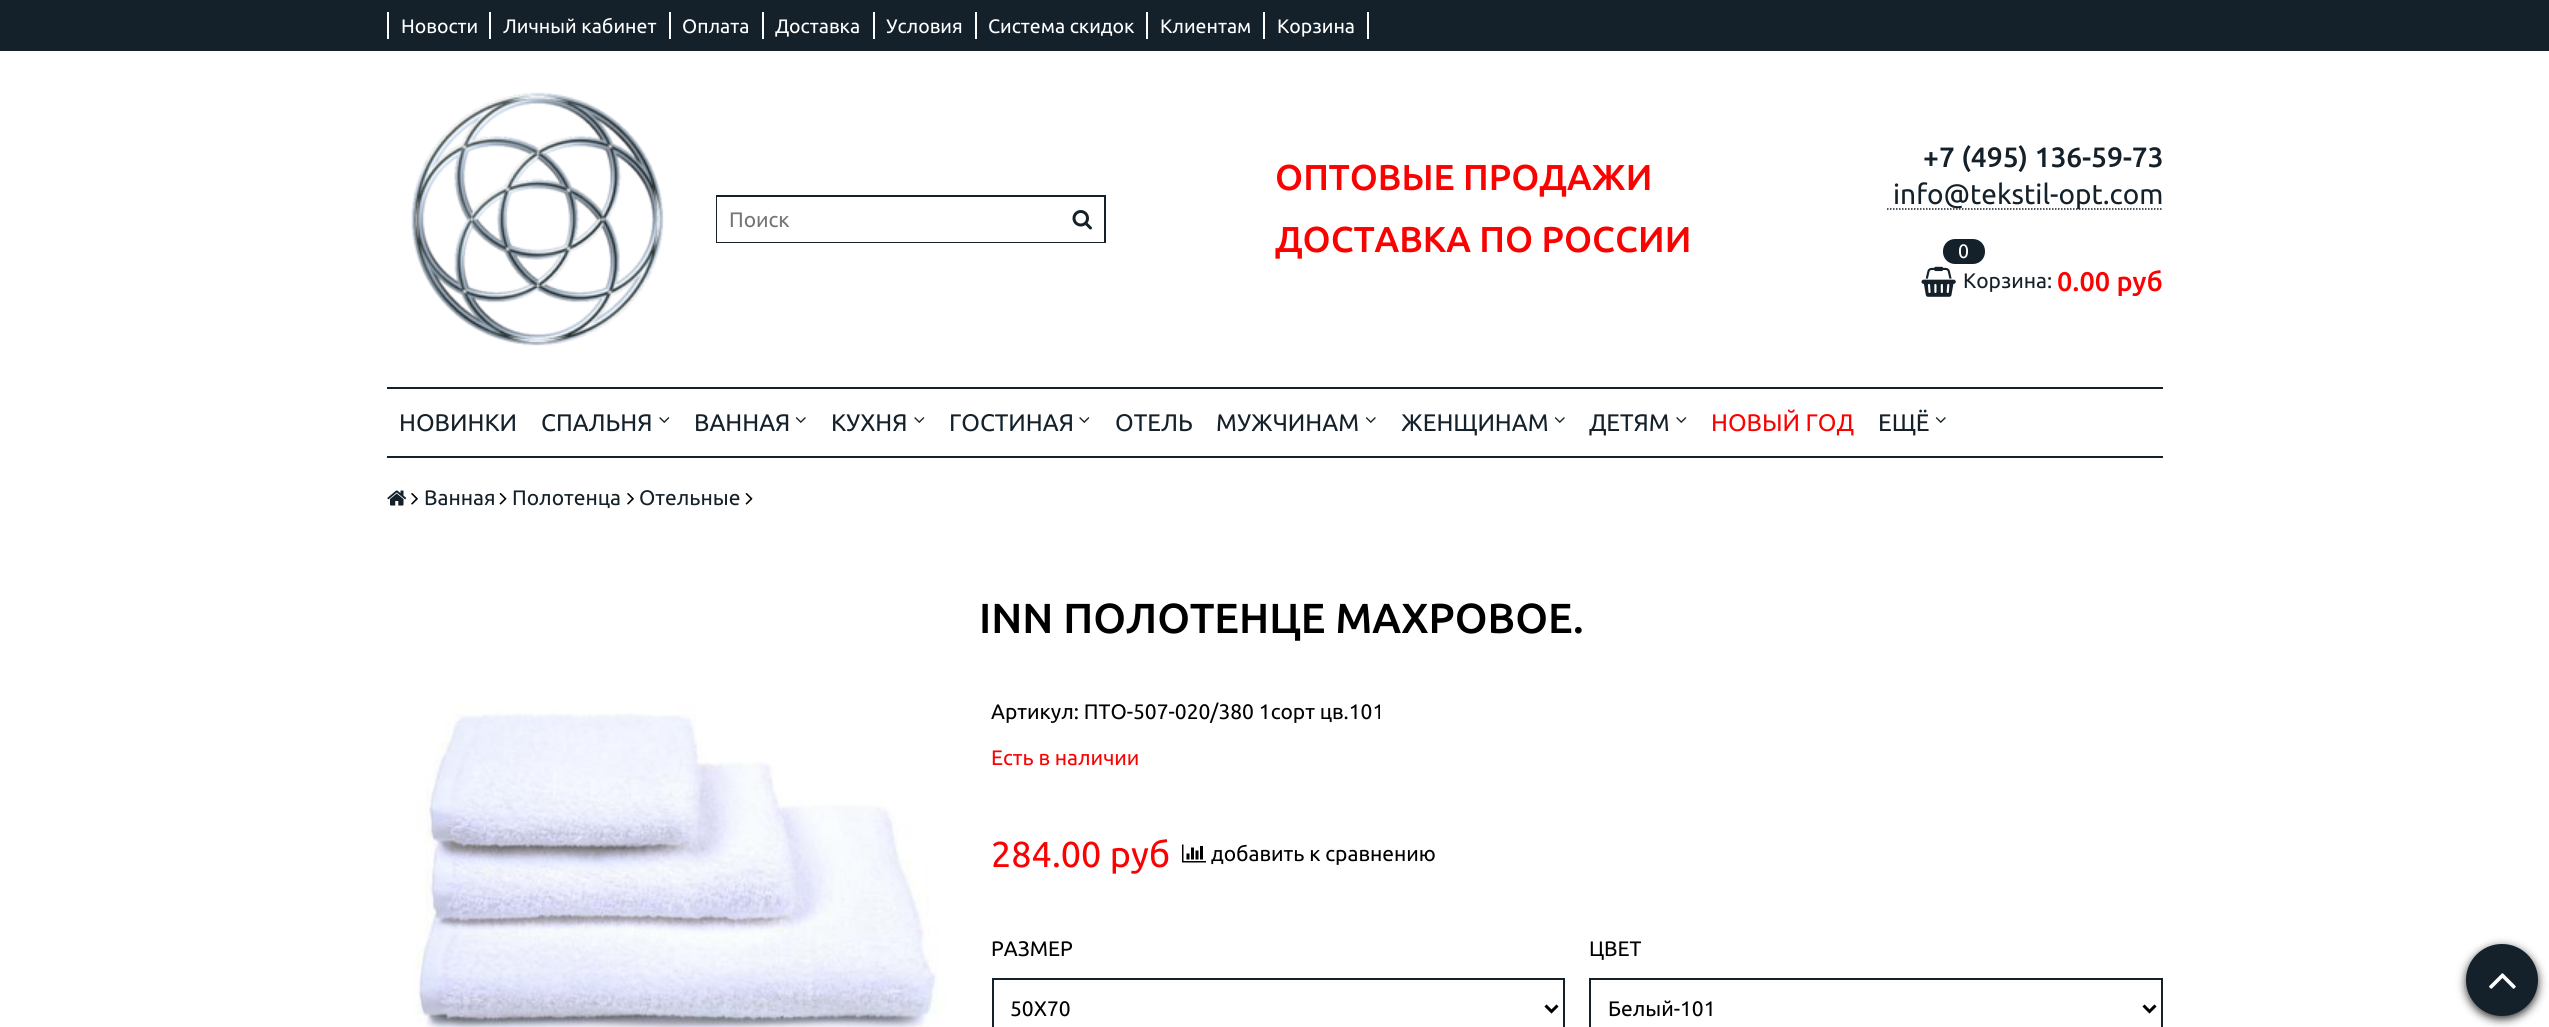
import math
import cairo



def rounded_rect(context, x, y, w, h, r):
    context.new_sub_path()
    for i, (u, v) in enumerate([(x + w - r, y + h - r), (x + r, y + h - r), (x + r, y + r), (x + w - r, y + r)]):
        context.arc(u, v, r, i * math.pi / 2, (i + 1) * math.pi / 2)
    context.close_path()


def draw_shadow(context, x, y, w, h, r, blur, alpha):
    context.push_group_with_content(cairo.Content.ALPHA)
    context.set_operator(cairo.Operator.SOURCE)
    for i in range(15, -16, -2):
        e = blur * i / 6
        if min(w, h) + 2 * e > 0:
            context.set_source_rgba(0, 0, 0, alpha * math.erfc((i - 1) / 8.5) / 2)
            rounded_rect(context, x - e, y - e, w + 2 * e, h + 2 * e, max(0, min(r + e + blur * .6, min(w, h) / 2 + e)))
            context.fill()
    context.mask(context.pop_group())


def draw_image(context, path, x, y, w, h):
    context.save()
    context.set_source_surface(cairo.ImageSurface.create_from_png(path), x, y)
    context.rectangle(x, y, w, h)
    context.fill()
    context.restore()


def draw(context):
    context.set_source_rgb(1, 1, 1)
    context.paint()
    context.set_source_rgb(20 / 255, 33 / 255, 42 / 255)
    context.rectangle(0, 0, 2549, 51)
    context.fill()
    context.set_source_rgb(1, 1, 1)
    context.rectangle(387, 12, 2, 27)
    context.fill()
    context.rectangle(489, 12, 2, 27)
    context.fill()
    context.rectangle(669, 12, 2, 27)
    context.fill()
    context.rectangle(762, 12, 2, 27)
    context.fill()
    context.rectangle(873, 12, 2, 27)
    context.fill()
    context.rectangle(975, 12, 2, 27)
    context.fill()
    context.rectangle(1146, 12, 2, 27)
    context.fill()
    context.rectangle(1367, 12, 2, 27)
    context.fill()
    context.rectangle(1263, 12, 2, 27)
    context.fill()
    draw_image(context, "images/1.png", 411, 92, 253, 254)
    context.rectangle(717, 196, 388, 46)
    context.set_source_rgb(20 / 255, 33 / 255, 42 / 255)
    context.stroke()
    context.set_source_rgb(1, 1, 1)
    context.rectangle(717, 197, 342, 45)
    context.fill()
    context.rectangle(1059, 241, 45, 1)
    context.fill()
    draw_image(context, "images/2.png", 1072, 210, 20, 20)
    context.new_path()
    context.move_to(1887, 209)
    context.line_to(2163, 209)
    context.set_source_rgb(20 / 255, 33 / 255, 42 / 255)
    context.set_line_width(1.5)
    context.set_dash([1.5, 1.5])
    context.stroke()
    rounded_rect(context, 1943, 239, 42, 25, 12)
    context.fill()
    draw_image(context, "images/3.png", 1921, 266, 35, 31)
    context.rectangle(387, 387, 1776, 2)
    context.fill()
    context.rectangle(387, 456, 1776, 2)
    context.fill()
    draw_image(context, "images/4.png", 659, 417, 11, 6)
    draw_image(context, "images/5.png", 795, 417, 11, 6)
    draw_image(context, "images/4.png", 914, 417, 11, 6)
    draw_image(context, "images/4.png", 1079, 417, 11, 6)
    draw_image(context, "images/5.png", 1365, 417, 11, 6)
    draw_image(context, "images/5.png", 1554, 417, 11, 6)
    draw_image(context, "images/4.png", 1676, 417, 11, 6)
    draw_image(context, "images/5.png", 1935, 417, 11, 6)
    draw_image(context, "images/6.png", 387, 490, 20, 16)
    draw_image(context, "images/7.png", 411, 493, 7, 12)
    draw_image(context, "images/8.png", 499, 493, 8, 12)
    draw_image(context, "images/7.png", 627, 493, 7, 12)
    draw_image(context, "images/8.png", 745, 493, 8, 12)
    draw_image(context, "images/9.png", 413, 704, 535, 323)
    draw_image(context, "images/10.png", 1182, 844, 24, 19)
    context.rectangle(993, 979, 571, 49)
    context.set_line_width(2)
    context.set_dash([])
    context.stroke()
    context.new_path()
    context.move_to(1545.5, 1005.5)
    context.line_to(1551.5, 1011.5)
    context.line_to(1557.5, 1005.5)
    context.set_source_rgb(0, 0, 0)
    context.set_line_width(3)
    context.stroke()
    context.rectangle(1590, 979, 572, 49)
    context.set_source_rgb(20 / 255, 33 / 255, 42 / 255)
    context.set_line_width(2)
    context.stroke()
    context.new_path()
    context.move_to(2143.5, 1005.5)
    context.line_to(2149.5, 1011.5)
    context.line_to(2155.5, 1005.5)
    context.set_source_rgb(0, 0, 0)
    context.set_line_width(3)
    context.stroke()
    context.set_source_rgb(51 / 255, 51 / 255, 51 / 255)
    draw_shadow(context, 2466, 947, 72, 72, 36, 4.5, 1)
    context.set_source_rgb(20 / 255, 33 / 255, 42 / 255)
    context.arc(2502, 980, 35, 0, 2 * math.pi)
    context.fill_preserve()
    context.set_line_width(2)
    context.stroke()
    draw_image(context, "images/11.png", 2489, 973, 27, 16)
    context.select_font_face("Ubuntu")
    context.set_font_size(19.5)
    context.set_source_rgb(1, 1, 1)
    context.move_to(401, 33)
    context.show_text("Новости")
    context.move_to(503, 33)
    context.show_text("Личный кабинет")
    context.move_to(682, 33)
    context.show_text("Оплата")
    context.move_to(775, 33)
    context.show_text("Доставка")
    context.move_to(886, 33)
    context.show_text("Условия")
    context.move_to(988, 33)
    context.show_text("Система скидок")
    context.move_to(1160, 33)
    context.show_text("Клиентам")
    context.move_to(1277, 33)
    context.show_text("Корзина")
    context.set_font_size(21)
    context.set_source_rgb(117 / 255, 117 / 255, 117 / 255)
    context.move_to(729, 227)
    context.show_text("Поиск")
    context.select_font_face("Ubuntu Medium")
    context.set_font_size(36)
    context.set_source_rgb(250 / 255, 2 / 255, 2 / 255)
    context.move_to(1275, 190)
    context.show_text("ОПТОВЫЕ ПРОДАЖИ")
    context.move_to(1275, 252)
    context.show_text("ДОСТАВКА ПО РОССИИ")
    context.set_font_size(28)
    context.set_source_rgb(20 / 255, 33 / 255, 42 / 255)
    context.move_to(1923, 167)
    context.show_text("+7 (495) 136-59-73")
    context.select_font_face("Ubuntu")
    context.move_to(1893, 204)
    context.show_text("info@tekstil-opt.com")
    context.set_font_size(19.5)
    context.set_source_rgb(1, 1, 1)
    context.move_to(1958, 258)
    context.show_text("0")
    context.set_font_size(21)
    context.set_source_rgb(20 / 255, 33 / 255, 42 / 255)
    context.move_to(1963, 288)
    context.show_text("Корзина:")
    context.select_font_face("Ubuntu Medium")
    context.set_font_size(27)
    context.set_source_rgb(250 / 255, 2 / 255, 2 / 255)
    context.move_to(2057, 291)
    context.show_text("0.00 руб")
    context.select_font_face("Ubuntu")
    context.set_font_size(24)
    context.set_source_rgb(20 / 255, 33 / 255, 42 / 255)
    context.move_to(399, 431)
    context.show_text("НОВИНКИ")
    context.move_to(541, 431)
    context.show_text("СПАЛЬНЯ")
    context.move_to(694, 431)
    context.show_text("ВАННАЯ")
    context.move_to(831, 431)
    context.show_text("КУХНЯ")
    context.move_to(949, 431)
    context.show_text("ГОСТИНАЯ")
    context.move_to(1115, 431)
    context.show_text("ОТЕЛЬ")
    context.move_to(1216, 431)
    context.show_text("МУЖЧИНАМ")
    context.move_to(1401, 431)
    context.show_text("ЖЕНЩИНАМ")
    context.move_to(1589, 431)
    context.show_text("ДЕТЯМ")
    context.set_source_rgb(250 / 255, 2 / 255, 2 / 255)
    context.move_to(1711, 431)
    context.show_text("НОВЫЙ ГОД")
    context.set_source_rgb(20 / 255, 33 / 255, 42 / 255)
    context.move_to(1878, 431)
    context.show_text("ЕЩЁ")
    context.set_font_size(21)
    context.move_to(424, 505)
    context.show_text("Ванная")
    context.move_to(512, 505)
    context.show_text("Полотенца")
    context.move_to(639, 505)
    context.show_text("Отельные")
    context.select_font_face("Ubuntu Medium")
    context.set_font_size(42)
    context.set_source_rgb(0, 0, 0)
    context.move_to(979, 633)
    context.show_text("INN ПОЛОТЕНЦЕ МАХРОВОЕ.")
    context.select_font_face("Ubuntu")
    context.set_font_size(21)
    context.move_to(991, 719)
    context.show_text("Артикул: ПТО-507-020/380 1сорт цв.101")
    context.set_source_rgb(250 / 255, 2 / 255, 2 / 255)
    context.move_to(991, 765)
    context.show_text("Есть в наличии")
    context.set_font_size(36)
    context.move_to(991, 867)
    context.show_text("284.00 руб")
    context.set_font_size(21)
    context.set_source_rgb(0, 0, 0)
    context.move_to(1211, 861)
    context.show_text("добавить к сравнению")
    context.move_to(991, 956)
    context.show_text("РАЗМЕР")
    context.move_to(1010, 1016)
    context.show_text("50Х70")
    context.move_to(1589, 956)
    context.show_text("ЦВЕТ")
    context.move_to(1608, 1016)
    context.show_text("Белый-101")


surface = cairo.ImageSurface(cairo.Format.RGB24, 2549, 1027)
context = cairo.Context(surface)
options = cairo.FontOptions()
options.set_hint_metrics(cairo.HintMetrics.OFF)
options.set_hint_style(cairo.HintStyle.NONE)
context.set_font_options(options)
context.set_miter_limit(4)
draw(context)
surface.write_to_png("out.png")
